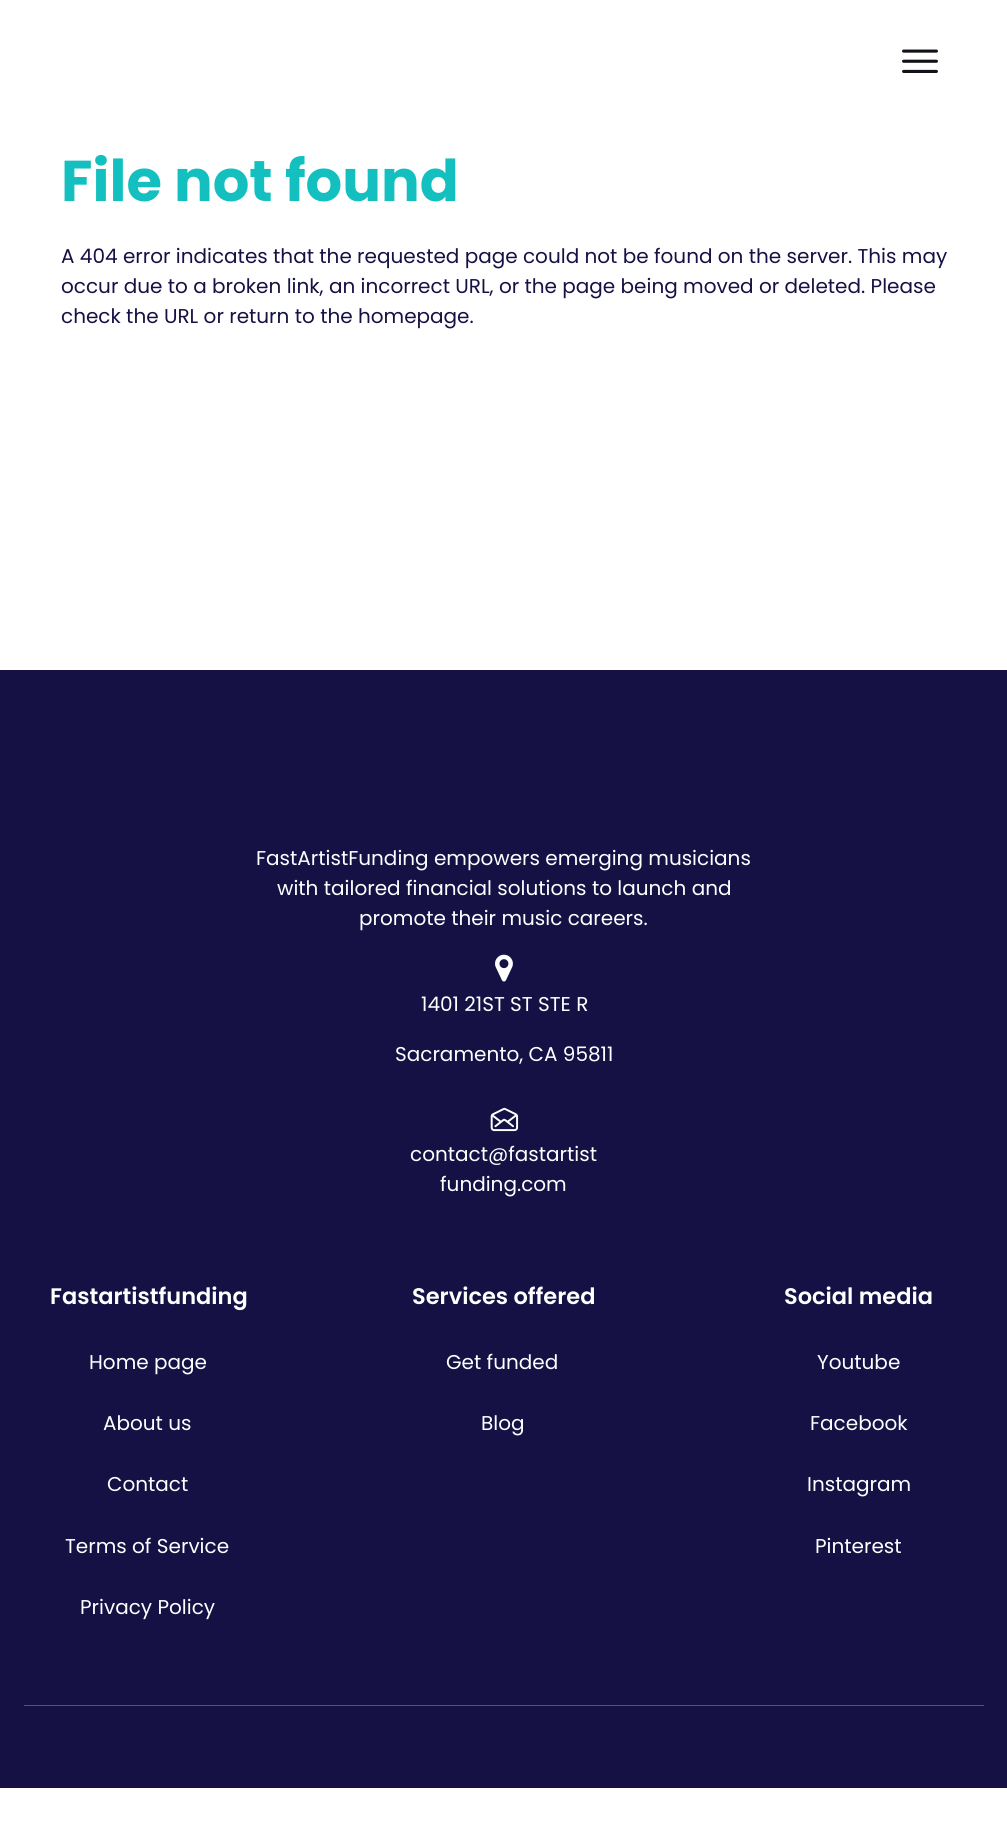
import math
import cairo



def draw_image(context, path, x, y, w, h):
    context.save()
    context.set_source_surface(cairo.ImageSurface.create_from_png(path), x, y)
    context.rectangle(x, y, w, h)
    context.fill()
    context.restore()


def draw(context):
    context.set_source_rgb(1, 1, 1)
    context.paint()
    draw_image(context, "images/1.png", 902, 49, 36, 24)
    context.set_source_rgb(21 / 255, 17 / 255, 69 / 255)
    context.rectangle(0, 670, 1007, 1118)
    context.fill()
    draw_image(context, "images/2.png", 495, 954, 18, 28)
    draw_image(context, "images/3.png", 490, 1107, 29, 25)
    context.set_source_rgb(81 / 255, 69 / 255, 198 / 255)
    context.rectangle(24, 1705, 960, 1)
    context.fill()
    context.select_font_face("Poppins", cairo.FontSlant.NORMAL, cairo.FontWeight.BOLD)
    context.set_font_size(57.5)
    context.set_source_rgb(19 / 255, 192 / 255, 191 / 255)
    context.move_to(61, 201)
    context.show_text("File not found")
    context.select_font_face("Poppins")
    context.set_font_size(20)
    context.set_source_rgb(21 / 255, 17 / 255, 69 / 255)
    context.move_to(61, 263)
    context.show_text("A 404 error indicates that the requested page could not be found on the server. This may")
    context.move_to(61, 293)
    context.show_text("occur due to a broken link, an incorrect URL, or the page being moved or deleted. Please")
    context.move_to(61, 323)
    context.show_text("check the URL or return to the homepage.")
    context.set_source_rgb(1, 1, 1)
    context.move_to(256, 865)
    context.show_text("FastArtistFunding empowers emerging musicians")
    context.move_to(277, 895)
    context.show_text("with tailored financial solutions to launch and")
    context.move_to(359, 925)
    context.show_text("promote their music careers.")
    context.move_to(421, 1011)
    context.show_text("1401 21ST ST STE R")
    context.move_to(395, 1061)
    context.show_text("Sacramento, CA 95811")
    context.move_to(410, 1161)
    context.show_text("contact@fastartist")
    context.move_to(440, 1191)
    context.show_text("funding.com")
    context.select_font_face("Poppins SemiBold")
    context.set_font_size(22.5)
    context.move_to(50, 1304)
    context.show_text("Fastartistfunding")
    context.move_to(412, 1304)
    context.show_text("Services offered")
    context.move_to(784, 1304)
    context.show_text("Social media")
    context.select_font_face("Poppins")
    context.set_font_size(20)
    context.move_to(89, 1369)
    context.show_text("Home page")
    context.move_to(103, 1430)
    context.show_text("About us")
    context.move_to(107, 1491)
    context.show_text("Contact")
    context.move_to(65, 1553)
    context.show_text("Terms of Service")
    context.move_to(80, 1614)
    context.show_text("Privacy Policy")
    context.move_to(446, 1369)
    context.show_text("Get funded")
    context.move_to(481, 1430)
    context.show_text("Blog")
    context.move_to(817, 1369)
    context.show_text("Youtube")
    context.move_to(810, 1430)
    context.show_text("Facebook")
    context.move_to(807, 1491)
    context.show_text("Instagram")
    context.move_to(815, 1553)
    context.show_text("Pinterest")


surface = cairo.ImageSurface(cairo.Format.RGB24, 1007, 1848)
context = cairo.Context(surface)
options = cairo.FontOptions()
options.set_hint_metrics(cairo.HintMetrics.OFF)
options.set_hint_style(cairo.HintStyle.NONE)
context.set_font_options(options)
context.set_miter_limit(4)
draw(context)
surface.write_to_png("out.png")
